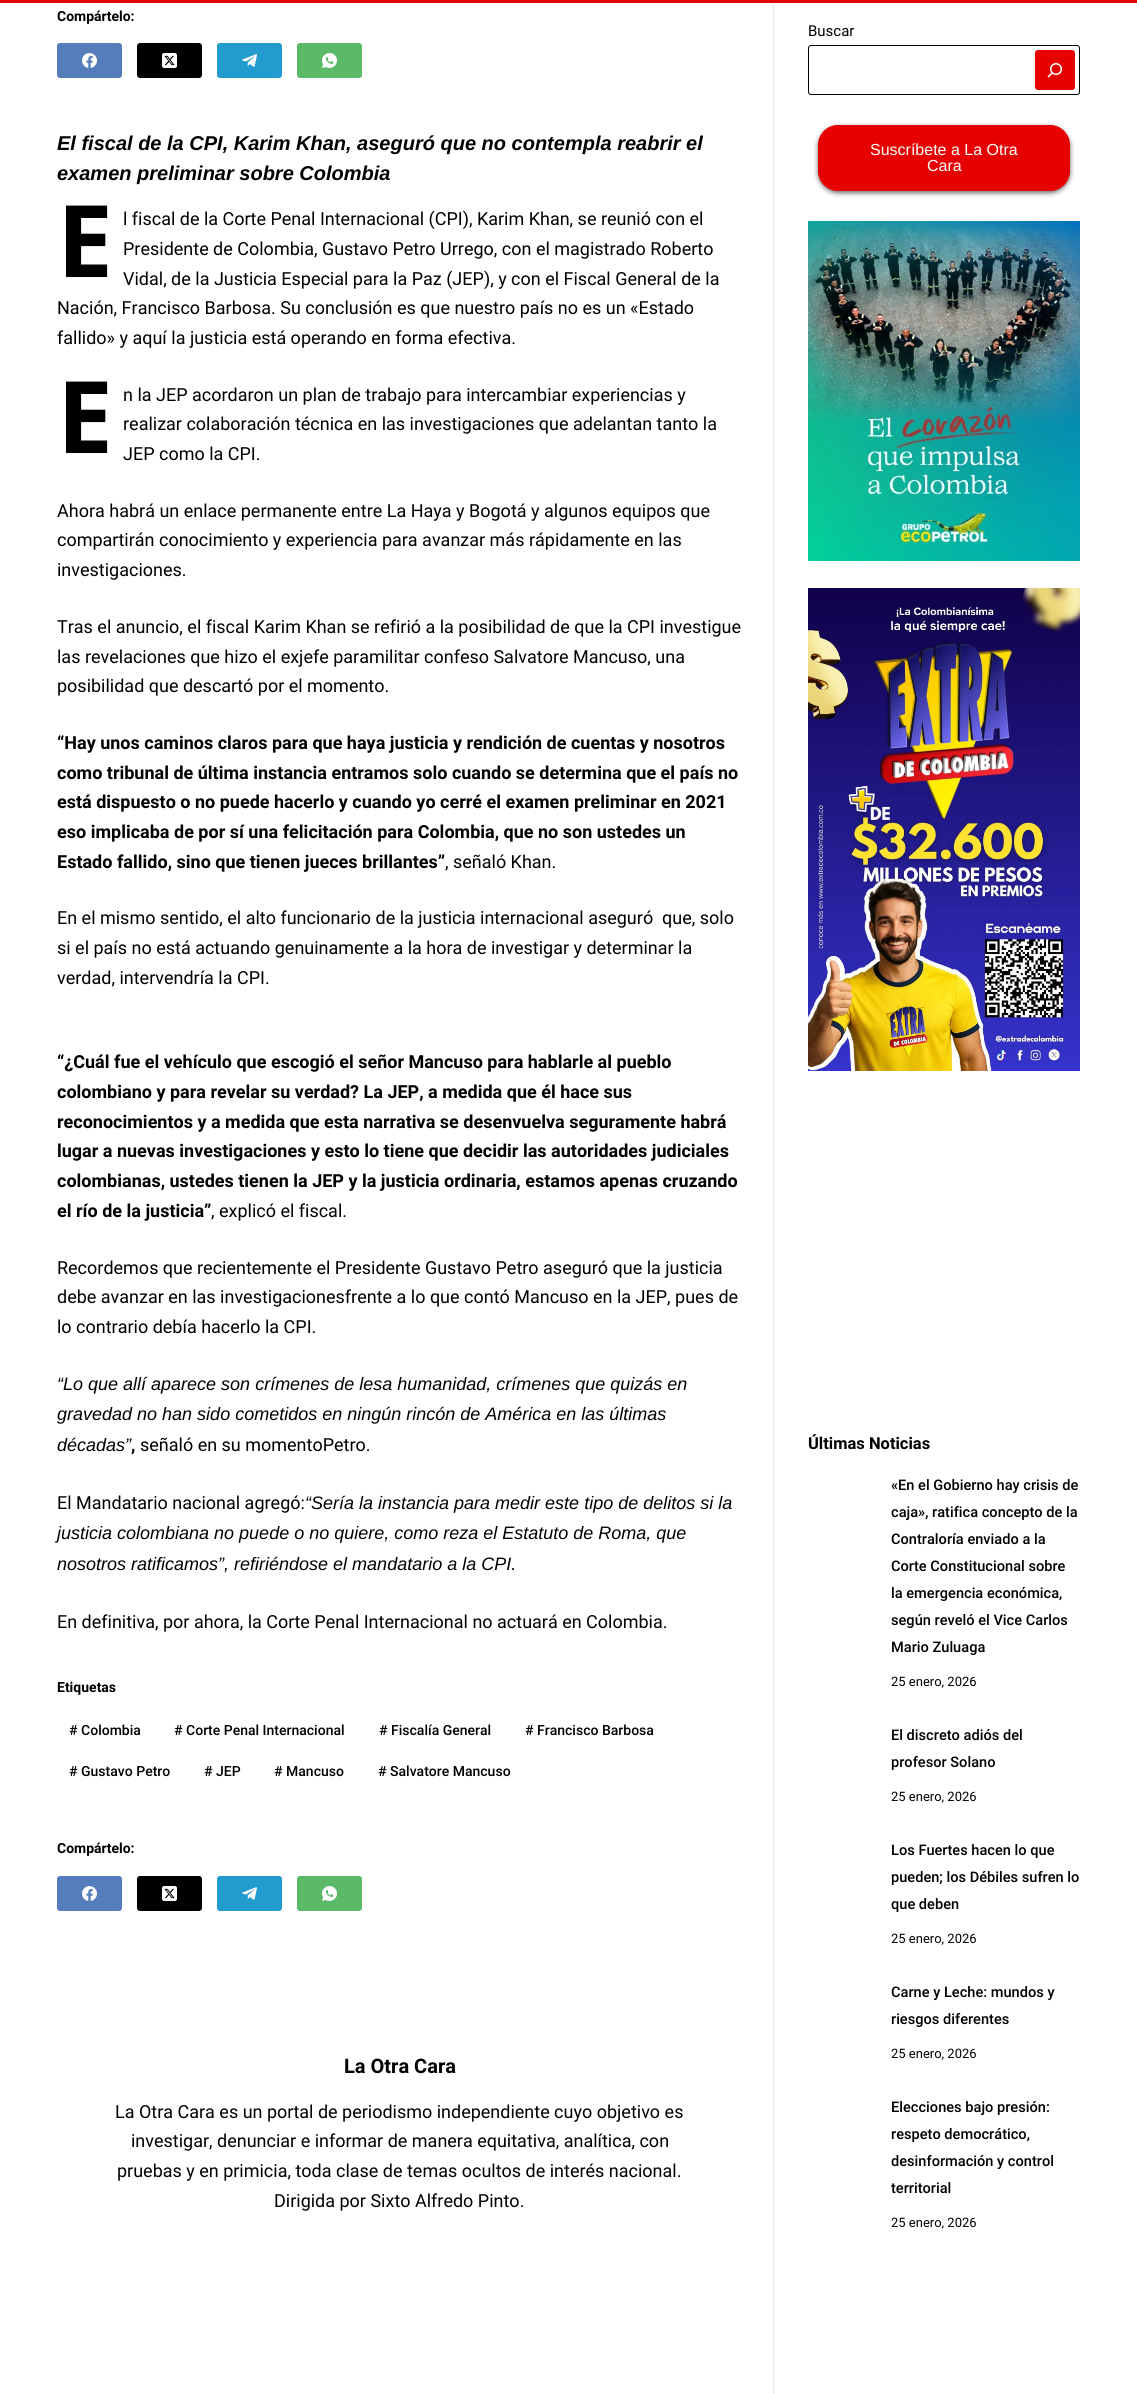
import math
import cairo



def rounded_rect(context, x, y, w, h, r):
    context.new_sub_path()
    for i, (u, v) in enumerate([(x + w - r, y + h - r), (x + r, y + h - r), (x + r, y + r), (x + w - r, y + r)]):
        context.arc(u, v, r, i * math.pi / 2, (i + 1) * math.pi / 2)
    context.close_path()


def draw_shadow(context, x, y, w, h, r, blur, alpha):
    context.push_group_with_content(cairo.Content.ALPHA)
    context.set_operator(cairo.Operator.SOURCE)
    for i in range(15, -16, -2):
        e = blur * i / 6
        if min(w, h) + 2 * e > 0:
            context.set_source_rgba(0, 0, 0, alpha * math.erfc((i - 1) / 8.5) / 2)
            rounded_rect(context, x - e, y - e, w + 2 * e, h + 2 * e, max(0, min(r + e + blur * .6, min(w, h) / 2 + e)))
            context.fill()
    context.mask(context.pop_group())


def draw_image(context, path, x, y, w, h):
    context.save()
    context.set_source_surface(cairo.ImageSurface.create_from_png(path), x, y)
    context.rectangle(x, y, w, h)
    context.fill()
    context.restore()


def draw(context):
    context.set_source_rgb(1, 1, 1)
    context.paint()
    context.set_source_rgb(230 / 255, 234 / 255, 239 / 255)
    context.rectangle(773, 0, 1, 2394)
    context.fill()
    context.set_source_rgb(230 / 255, 0, 0)
    context.rectangle(0, 0, 1137, 3)
    context.fill()
    context.set_source_rgb(85 / 255, 125 / 255, 188 / 255)
    rounded_rect(context, 57, 43, 65, 35, 3)
    context.fill()
    draw_image(context, "images/1.png", 82, 53, 15, 15)
    context.set_source_rgb(0, 0, 0)
    rounded_rect(context, 137, 43, 65, 35, 3)
    context.fill()
    draw_image(context, "images/2.png", 162, 53, 15, 15)
    context.set_source_rgb(34 / 255, 156 / 255, 206 / 255)
    rounded_rect(context, 217, 43, 65, 35, 3)
    context.fill()
    draw_image(context, "images/3.png", 242, 54, 15, 13)
    context.set_source_rgb(91 / 255, 186 / 255, 103 / 255)
    rounded_rect(context, 297, 43, 65, 35, 3)
    context.fill()
    draw_image(context, "images/4.png", 322, 53, 15, 15)
    context.set_source_rgb(85 / 255, 125 / 255, 188 / 255)
    rounded_rect(context, 57, 1876, 65, 35, 3)
    context.fill()
    draw_image(context, "images/1.png", 82, 1886, 15, 15)
    context.set_source_rgb(0, 0, 0)
    rounded_rect(context, 137, 1876, 65, 35, 3)
    context.fill()
    draw_image(context, "images/2.png", 162, 1886, 15, 15)
    context.set_source_rgb(34 / 255, 156 / 255, 206 / 255)
    rounded_rect(context, 217, 1876, 65, 35, 3)
    context.fill()
    draw_image(context, "images/3.png", 242, 1887, 15, 13)
    context.set_source_rgb(91 / 255, 186 / 255, 103 / 255)
    rounded_rect(context, 297, 1876, 65, 35, 3)
    context.fill()
    draw_image(context, "images/4.png", 322, 1886, 15, 15)
    rounded_rect(context, 808.5, 45.5, 271, 49, 2.5)
    context.set_source_rgb(0, 0, 0)
    context.set_line_width(1)
    context.stroke()
    context.set_source_rgb(230 / 255, 0, 0)
    rounded_rect(context, 1035, 50, 40, 40, 3)
    context.fill()
    draw_image(context, "images/5.png", 1047, 63, 16, 15)
    context.set_source_rgb(0, 0, 0)
    draw_shadow(context, 818, 127, 252, 66, 20, 2.5, 0.6)
    context.set_source_rgb(230 / 255, 0, 0)
    rounded_rect(context, 818.5, 125.5, 251, 65, 19.5)
    context.fill_preserve()
    context.stroke()
    draw_image(context, "images/6.png", 808, 221, 272, 340)
    draw_image(context, "images/7.png", 808, 588, 272, 483)
    context.select_font_face("Roboto", cairo.FontSlant.NORMAL, cairo.FontWeight.BOLD)
    context.set_font_size(14)
    context.set_source_rgb(0, 0, 0)
    context.move_to(57, 21)
    context.show_text("Compártelo:")
    context.select_font_face("Liberation Sans", cairo.FontSlant.ITALIC, cairo.FontWeight.BOLD)
    context.set_font_size(20)
    context.move_to(57, 150)
    context.show_text("El fiscal de la CPI, Karim Khan, aseguró que no contempla reabrir el")
    context.move_to(57, 180)
    context.show_text("examen preliminar sobre Colombia")
    context.select_font_face("Noto Sans", cairo.FontSlant.NORMAL, cairo.FontWeight.BOLD)
    context.set_font_size(100)
    context.move_to(57, 277)
    context.show_text("E")
    context.select_font_face("Roboto")
    context.set_font_size(18)
    context.move_to(123, 225)
    context.show_text("l fiscal de la Corte Penal Internacional (CPI), Karim Khan, se reunió con el")
    context.move_to(123, 255)
    context.show_text("Presidente de Colombia, Gustavo Petro Urrego, con el magistrado Roberto")
    context.move_to(123, 285)
    context.show_text("Vidal, de la Justicia Especial para la Paz (JEP), y con el Fiscal General de la")
    context.move_to(57, 314)
    context.show_text("Nación, Francisco Barbosa. Su conclusión es que nuestro país no es un «Estado")
    context.move_to(57, 344)
    context.show_text("fallido» y aquí la justicia está operando en forma efectiva.")
    context.select_font_face("Noto Sans", cairo.FontSlant.NORMAL, cairo.FontWeight.BOLD)
    context.set_font_size(100)
    context.move_to(57, 453)
    context.show_text("E")
    context.select_font_face("Roboto")
    context.set_font_size(18)
    context.move_to(123, 401)
    context.show_text("n la JEP acordaron un plan de trabajo para intercambiar experiencias y")
    context.move_to(123, 430)
    context.show_text("realizar colaboración técnica en las investigaciones que adelantan tanto la")
    context.move_to(123, 460)
    context.show_text("JEP como la CPI.")
    context.move_to(57, 517)
    context.show_text("Ahora habrá un enlace permanente entre La Haya y Bogotá y algunos equipos que")
    context.move_to(57, 546)
    context.show_text("compartirán conocimiento y experiencia para avanzar más rápidamente en las")
    context.move_to(57, 576)
    context.show_text("investigaciones.")
    context.move_to(57, 633)
    context.show_text("Tras el anuncio, el fiscal Karim Khan se refirió a la posibilidad de que la CPI investigue")
    context.move_to(57, 663)
    context.show_text("las revelaciones que hizo el exjefe paramilitar confeso Salvatore Mancuso, una")
    context.move_to(57, 692)
    context.show_text("posibilidad que descartó por el momento.")
    context.select_font_face("Roboto", cairo.FontSlant.NORMAL, cairo.FontWeight.BOLD)
    context.move_to(57, 749)
    context.show_text("“Hay unos caminos claros para que haya justicia y rendición de cuentas y nosotros")
    context.move_to(57, 779)
    context.show_text("como tribunal de última instancia entramos solo cuando se determina que el país no")
    context.move_to(57, 808)
    context.show_text("está dispuesto o no puede hacerlo y cuando yo cerré el examen preliminar en 2021")
    context.move_to(57, 838)
    context.show_text("eso implicaba de por sí una felicitación para Colombia, que no son ustedes un")
    context.move_to(57, 868)
    context.show_text("Estado fallido, sino que tienen jueces brillantes”")
    context.select_font_face("Roboto")
    context.move_to(445, 868)
    context.show_text(", señaló Khan.")
    context.move_to(57, 924)
    context.show_text("En el mismo sentido, el alto funcionario de la justicia internacional aseguró  que, solo")
    context.move_to(57, 954)
    context.show_text("si el país no está actuando genuinamente a la hora de investigar y determinar la")
    context.move_to(57, 984)
    context.show_text("verdad, intervendría la CPI.")
    context.select_font_face("Roboto", cairo.FontSlant.NORMAL, cairo.FontWeight.BOLD)
    context.move_to(57, 1068)
    context.show_text("“¿Cuál fue el vehículo que escogió el señor Mancuso para hablarle al pueblo")
    context.move_to(57, 1098)
    context.show_text("colombiano y para revelar su verdad? La JEP, a medida que él hace sus")
    context.move_to(57, 1128)
    context.show_text("reconocimientos y a medida que esta narrativa se desenvuelva seguramente habrá")
    context.move_to(57, 1157)
    context.show_text("lugar a nuevas investigaciones y esto lo tiene que decidir las autoridades judiciales")
    context.move_to(57, 1187)
    context.show_text("colombianas, ustedes tienen la JEP y la justicia ordinaria, estamos apenas cruzando")
    context.move_to(57, 1217)
    context.show_text("el río de la justicia”")
    context.select_font_face("Roboto")
    context.move_to(211, 1217)
    context.show_text(", explicó el fiscal.")
    context.move_to(57, 1274)
    context.show_text("Recordemos que recientemente el Presidente Gustavo Petro aseguró que la justicia")
    context.move_to(57, 1303)
    context.show_text("debe avanzar en las investigacionesfrente a lo que contó Mancuso en la JEP, pues de")
    context.move_to(57, 1333)
    context.show_text("lo contrario debía hacerlo la CPI.")
    context.select_font_face("Liberation Sans", cairo.FontSlant.ITALIC)
    context.move_to(57, 1390)
    context.show_text("“Lo que allí aparece son crímenes de lesa humanidad, crímenes que quizás en")
    context.move_to(57, 1420)
    context.show_text("gravedad no han sido cometidos en ningún rincón de América en las últimas")
    context.move_to(57, 1451)
    context.show_text("décadas”")
    context.select_font_face("Roboto", cairo.FontSlant.NORMAL, cairo.FontWeight.BOLD)
    context.move_to(131, 1451)
    context.show_text(",")
    context.select_font_face("Roboto")
    context.move_to(140, 1451)
    context.show_text("señaló en su momentoPetro.")
    context.move_to(57, 1509)
    context.show_text("El Mandatario nacional agregó:")
    context.select_font_face("Liberation Sans", cairo.FontSlant.ITALIC)
    context.move_to(305, 1509)
    context.show_text("“Sería la instancia para medir este tipo de delitos si la")
    context.move_to(57, 1539)
    context.show_text("justicia colombiana no puede o no quiere, como reza el Estatuto de Roma, que")
    context.move_to(57, 1570)
    context.show_text("nosotros ratificamos”, refiriéndose el mandatario a la CPI.")
    context.select_font_face("Roboto")
    context.move_to(57, 1628)
    context.show_text("En definitiva, por ahora, la Corte Penal Internacional no actuará en Colombia.")
    context.select_font_face("Roboto", cairo.FontSlant.NORMAL, cairo.FontWeight.BOLD)
    context.set_font_size(14)
    context.move_to(57, 1692)
    context.show_text("Etiquetas")
    context.select_font_face("Roboto Medium")
    context.move_to(69, 1735)
    context.show_text("# Colombia")
    context.move_to(174, 1735)
    context.show_text("# Corte Penal Internacional")
    context.move_to(379, 1735)
    context.show_text("# Fiscalía General")
    context.move_to(525, 1735)
    context.show_text("# Francisco Barbosa")
    context.move_to(69, 1776)
    context.show_text("# Gustavo Petro")
    context.move_to(204, 1776)
    context.show_text("# JEP")
    context.move_to(274, 1776)
    context.show_text("# Mancuso")
    context.move_to(378, 1776)
    context.show_text("# Salvatore Mancuso")
    context.select_font_face("Roboto", cairo.FontSlant.NORMAL, cairo.FontWeight.BOLD)
    context.move_to(57, 1853)
    context.show_text("Compártelo:")
    context.set_font_size(20)
    context.move_to(344, 2073)
    context.show_text("La Otra Cara")
    context.select_font_face("Roboto")
    context.set_font_size(18)
    context.move_to(115, 2118)
    context.show_text("La Otra Cara es un portal de periodismo independiente cuyo objetivo es")
    context.move_to(131, 2147)
    context.show_text("investigar, denunciar e informar de manera equitativa, analítica, con")
    context.move_to(117, 2177)
    context.show_text("pruebas y en primicia, toda clase de temas ocultos de interés nacional.")
    context.move_to(274, 2207)
    context.show_text("Dirigida por Sixto Alfredo Pinto.")
    context.set_font_size(15)
    context.move_to(808, 36)
    context.show_text("Buscar")
    context.select_font_face("Liberation Sans")
    context.set_font_size(16)
    context.set_source_rgb(1, 1, 1)
    context.move_to(870, 155)
    context.show_text("Suscríbete a La Otra")
    context.move_to(927, 171)
    context.show_text("Cara")
    context.select_font_face("Roboto", cairo.FontSlant.NORMAL, cairo.FontWeight.BOLD)
    context.set_font_size(16.5)
    context.set_source_rgb(0, 0, 0)
    context.move_to(808, 1449)
    context.show_text("Últimas Noticias")
    context.select_font_face("Roboto Medium")
    context.set_font_size(14.6)
    context.move_to(891, 1490)
    context.show_text("«En el Gobierno hay crisis de")
    context.move_to(891, 1517)
    context.show_text("caja», ratifica concepto de la")
    context.move_to(891, 1544)
    context.show_text("Contraloría enviado a la")
    context.move_to(891, 1571)
    context.show_text("Corte Constitucional sobre")
    context.move_to(891, 1598)
    context.show_text("la emergencia económica,")
    context.move_to(891, 1625)
    context.show_text("según reveló el Vice Carlos")
    context.move_to(891, 1652)
    context.show_text("Mario Zuluaga")
    context.select_font_face("Roboto")
    context.set_font_size(13)
    context.move_to(891, 1686)
    context.show_text("25 enero, 2026")
    context.select_font_face("Roboto Medium")
    context.set_font_size(14.6)
    context.move_to(891, 1740)
    context.show_text("El discreto adiós del")
    context.move_to(891, 1767)
    context.show_text("profesor Solano")
    context.select_font_face("Roboto")
    context.set_font_size(13)
    context.move_to(891, 1801)
    context.show_text("25 enero, 2026")
    context.select_font_face("Roboto Medium")
    context.set_font_size(14.6)
    context.move_to(891, 1855)
    context.show_text("Los Fuertes hacen lo que")
    context.move_to(891, 1882)
    context.show_text("pueden; los Débiles sufren lo")
    context.move_to(891, 1909)
    context.show_text("que deben")
    context.select_font_face("Roboto")
    context.set_font_size(13)
    context.move_to(891, 1943)
    context.show_text("25 enero, 2026")
    context.select_font_face("Roboto Medium")
    context.set_font_size(14.6)
    context.move_to(891, 1997)
    context.show_text("Carne y Leche: mundos y")
    context.move_to(891, 2024)
    context.show_text("riesgos diferentes")
    context.select_font_face("Roboto")
    context.set_font_size(13)
    context.move_to(891, 2058)
    context.show_text("25 enero, 2026")
    context.select_font_face("Roboto Medium")
    context.set_font_size(14.6)
    context.move_to(891, 2112)
    context.show_text("Elecciones bajo presión:")
    context.move_to(891, 2139)
    context.show_text("respeto democrático,")
    context.move_to(891, 2166)
    context.show_text("desinformación y control")
    context.move_to(891, 2193)
    context.show_text("territorial")
    context.select_font_face("Roboto")
    context.set_font_size(13)
    context.move_to(891, 2227)
    context.show_text("25 enero, 2026")


surface = cairo.ImageSurface(cairo.Format.RGB24, 1137, 2394)
context = cairo.Context(surface)
options = cairo.FontOptions()
options.set_hint_metrics(cairo.HintMetrics.OFF)
options.set_hint_style(cairo.HintStyle.NONE)
context.set_font_options(options)
context.set_miter_limit(4)
draw(context)
surface.write_to_png("out.png")
